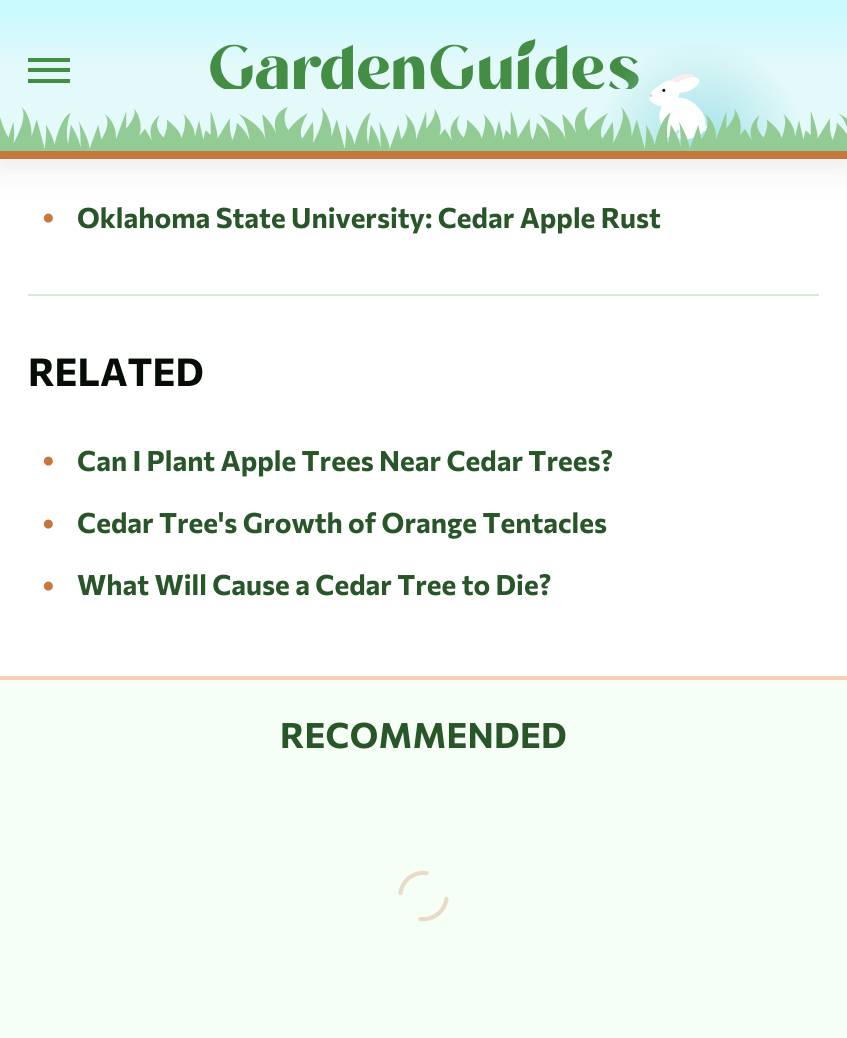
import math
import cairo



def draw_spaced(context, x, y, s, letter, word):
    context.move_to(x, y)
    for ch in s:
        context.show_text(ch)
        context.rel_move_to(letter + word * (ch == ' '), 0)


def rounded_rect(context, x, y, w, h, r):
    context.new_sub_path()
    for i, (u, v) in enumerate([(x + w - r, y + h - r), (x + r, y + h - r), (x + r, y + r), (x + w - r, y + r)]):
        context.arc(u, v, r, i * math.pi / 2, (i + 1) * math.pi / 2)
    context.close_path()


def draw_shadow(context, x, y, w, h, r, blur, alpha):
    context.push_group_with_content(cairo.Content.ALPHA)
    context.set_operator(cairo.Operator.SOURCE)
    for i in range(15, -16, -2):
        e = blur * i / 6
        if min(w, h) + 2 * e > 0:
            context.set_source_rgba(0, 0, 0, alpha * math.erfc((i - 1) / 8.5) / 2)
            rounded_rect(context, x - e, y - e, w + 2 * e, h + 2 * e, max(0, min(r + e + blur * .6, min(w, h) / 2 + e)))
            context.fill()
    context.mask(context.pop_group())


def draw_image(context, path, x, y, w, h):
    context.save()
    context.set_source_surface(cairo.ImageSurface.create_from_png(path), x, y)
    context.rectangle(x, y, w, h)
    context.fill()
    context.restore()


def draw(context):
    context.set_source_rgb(1, 1, 1)
    context.paint()
    context.set_source_rgb(13 / 255, 28 / 255, 13 / 255)
    draw_shadow(context, 0, 7, 847, 159, 0, 16, 0.1)
    gradient = cairo.LinearGradient(424, 151, 424, 0)
    gradient.add_color_stop_rgba(0.55, 228 / 255, 249 / 255, 250 / 255, 1)
    gradient.add_color_stop_rgba(0.95, 201 / 255, 249 / 255, 254 / 255, 1)
    context.set_source(gradient)
    context.rectangle(0, 0, 847, 150)
    context.fill()
    context.set_source_rgb(198 / 255, 119 / 255, 62 / 255)
    context.rectangle(0, 151, 847, 8)
    context.fill()
    context.set_source_rgb(67 / 255, 141 / 255, 68 / 255)
    context.rectangle(28, 58, 42, 4)
    context.fill()
    context.rectangle(28, 68, 42, 4)
    context.fill()
    context.rectangle(28, 79, 42, 4)
    context.fill()
    draw_image(context, "images/1.png", 210, 39, 429, 50)
    gradient = cairo.RadialGradient(700, 144, 0, 700, 144, 105)
    gradient.add_color_stop_rgba(0, 164 / 255, 225 / 255, 231 / 255, 1)
    gradient.add_color_stop_rgba(1, 164 / 255, 225 / 255, 231 / 255, 0)
    context.set_source(gradient)
    context.rectangle(600, 42, 202, 108)
    context.fill()
    draw_image(context, "images/2.png", 649, 73, 59, 67)
    draw_image(context, "images/3.png", 0, 107, 847, 44)
    context.set_source_rgb(202 / 255, 241 / 255, 203 / 255)
    context.rectangle(28, 294, 791, 2)
    context.fill()
    context.set_source_rgb(245 / 255, 1, 245 / 255)
    context.rectangle(0, 680, 847, 358)
    context.fill()
    context.set_source_rgb(248 / 255, 208 / 255, 179 / 255)
    context.rectangle(0, 676, 847, 4)
    context.fill()
    context.new_path()
    context.move_to(400.5, 893)
    context.curve_to(402, 880.5, 414, 871.5, 426.5, 873)
    context.move_to(446.5, 899)
    context.curve_to(444.5, 911.5, 433, 920.5, 420.5, 919)
    context.set_source_rgb(233 / 255, 218 / 255, 198 / 255)
    context.set_line_width(4.2)
    context.set_line_cap(cairo.LineCap.ROUND)
    context.stroke()
    context.select_font_face("Liberation Sans")
    context.set_font_size(21)
    context.set_source_rgb(198 / 255, 119 / 255, 62 / 255)
    context.move_to(42, 224)
    context.show_text("●")
    context.select_font_face("Commissioner", cairo.FontSlant.NORMAL, cairo.FontWeight.BOLD)
    context.set_font_size(28)
    context.set_source_rgb(40 / 255, 86 / 255, 41 / 255)
    context.move_to(77, 228)
    context.show_text("Oklahoma State University: Cedar Apple Rust")
    context.set_font_size(38.5)
    context.set_source_rgb(6 / 255, 12 / 255, 6 / 255)
    context.move_to(28, 386)
    context.show_text("RELATED")
    context.select_font_face("Liberation Sans")
    context.set_font_size(21)
    context.set_source_rgb(198 / 255, 119 / 255, 62 / 255)
    context.move_to(42, 467)
    context.show_text("●")
    context.select_font_face("Commissioner", cairo.FontSlant.NORMAL, cairo.FontWeight.BOLD)
    context.set_font_size(28)
    context.set_source_rgb(40 / 255, 86 / 255, 41 / 255)
    context.move_to(77, 471)
    context.show_text("Can I Plant Apple Trees Near Cedar Trees?")
    context.select_font_face("Liberation Sans")
    context.set_font_size(21)
    context.set_source_rgb(198 / 255, 119 / 255, 62 / 255)
    context.move_to(42, 530)
    context.show_text("●")
    context.select_font_face("Commissioner", cairo.FontSlant.NORMAL, cairo.FontWeight.BOLD)
    context.set_font_size(28)
    context.set_source_rgb(40 / 255, 86 / 255, 41 / 255)
    context.move_to(77, 533)
    context.show_text("Cedar Tree's Growth of Orange Tentacles")
    context.select_font_face("Liberation Sans")
    context.set_font_size(21)
    context.set_source_rgb(198 / 255, 119 / 255, 62 / 255)
    context.move_to(42, 592)
    context.show_text("●")
    context.select_font_face("Commissioner", cairo.FontSlant.NORMAL, cairo.FontWeight.BOLD)
    context.set_font_size(28)
    context.set_source_rgb(40 / 255, 86 / 255, 41 / 255)
    context.move_to(77, 595)
    context.show_text("What Will Cause a Cedar Tree to Die?")
    context.set_font_size(35)
    draw_spaced(context, 280, 748, "RECOMMENDED", 0.25, 0)


surface = cairo.ImageSurface(cairo.Format.RGB24, 847, 1038)
context = cairo.Context(surface)
options = cairo.FontOptions()
options.set_hint_metrics(cairo.HintMetrics.OFF)
options.set_hint_style(cairo.HintStyle.NONE)
context.set_font_options(options)
context.set_miter_limit(4)
draw(context)
surface.write_to_png("out.png")
